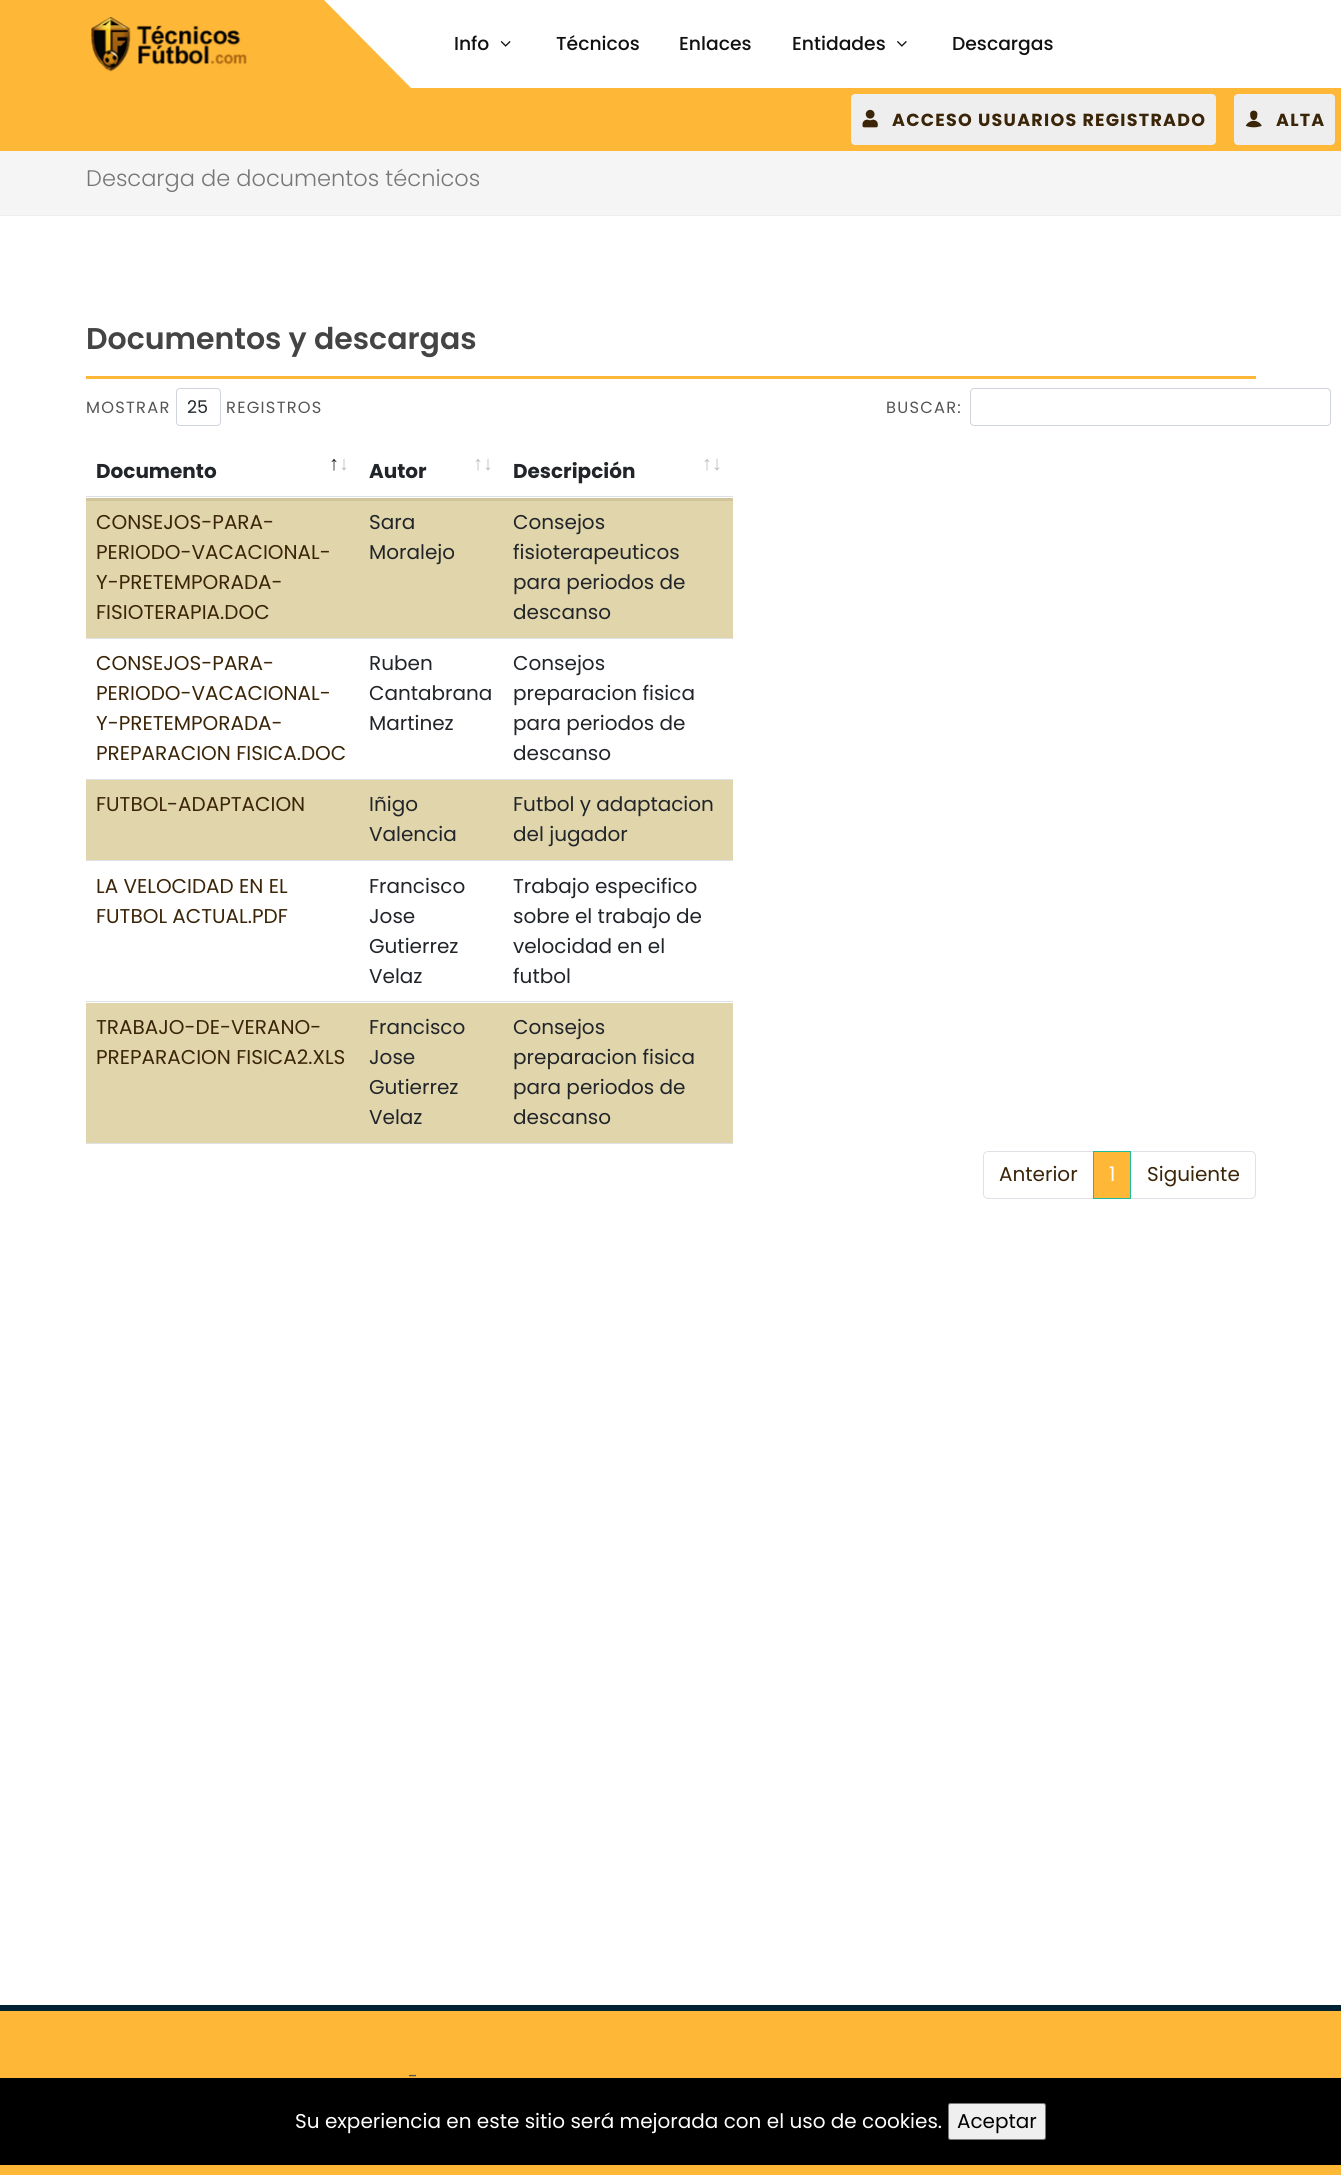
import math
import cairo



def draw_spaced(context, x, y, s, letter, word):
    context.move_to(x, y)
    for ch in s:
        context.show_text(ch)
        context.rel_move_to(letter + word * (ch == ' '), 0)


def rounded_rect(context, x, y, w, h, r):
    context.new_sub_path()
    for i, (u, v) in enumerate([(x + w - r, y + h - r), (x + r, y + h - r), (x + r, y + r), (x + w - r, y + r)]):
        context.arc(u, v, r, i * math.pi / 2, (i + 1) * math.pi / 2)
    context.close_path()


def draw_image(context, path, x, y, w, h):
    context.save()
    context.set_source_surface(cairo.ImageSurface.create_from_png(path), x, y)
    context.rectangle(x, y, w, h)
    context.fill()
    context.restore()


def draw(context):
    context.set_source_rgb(1, 1, 1)
    context.paint()
    context.set_source_rgb(224 / 255, 213 / 255, 171 / 255)
    context.rectangle(86, 501, 647, 137)
    context.fill()
    context.set_source_rgb(1, 183 / 255, 55 / 255)
    context.rectangle(0, 0, 1341, 151)
    context.fill()
    draw_image(context, "images/1.png", 91, 17, 156, 55)
    context.set_source_rgb(1, 1, 1)
    context.rectangle(324, 0, 1017, 88)
    context.fill()
    context.set_source_rgb(1, 183 / 255, 55 / 255)
    context.new_path()
    context.move_to(411, 88)
    context.line_to(324, 88)
    context.line_to(324, 0)
    context.close_path()
    context.fill()
    draw_image(context, "images/2.png", 500, 41, 11, 6)
    draw_image(context, "images/3.png", 897, 41, 10, 6)
    context.set_source_rgb(238 / 255, 238 / 255, 238 / 255)
    rounded_rect(context, 851, 94, 365, 51, 4)
    context.fill()
    draw_image(context, "images/4.png", 862, 109, 16, 19)
    rounded_rect(context, 1234, 94, 101, 51, 4)
    context.fill()
    draw_image(context, "images/5.png", 1245, 110, 17, 18)
    context.set_source_rgb(245 / 255, 245 / 255, 245 / 255)
    context.rectangle(0, 151, 1341, 64)
    context.fill()
    context.set_source_rgb(238 / 255, 238 / 255, 238 / 255)
    context.rectangle(0, 215, 1341, 1)
    context.fill()
    context.set_source_rgb(1, 183 / 255, 55 / 255)
    context.rectangle(86, 376, 1170, 3)
    context.fill()
    rounded_rect(context, 176.5, 388.5, 44, 37, 3.5)
    context.set_source_rgb(206 / 255, 212 / 255, 218 / 255)
    context.set_line_width(1)
    context.stroke()
    rounded_rect(context, 970.5, 388.5, 360, 37, 3.5)
    context.stroke()
    context.set_source_rgb(222 / 255, 226 / 255, 230 / 255)
    context.rectangle(86, 496, 647, 1)
    context.fill()
    context.set_source_rgb(209 / 255, 197 / 255, 156 / 255)
    context.rectangle(86, 498, 647, 3)
    context.fill()
    context.set_source_rgb(222 / 255, 226 / 255, 230 / 255)
    context.rectangle(86, 638, 647, 1)
    context.fill()
    context.rectangle(86, 779, 647, 1)
    context.fill()
    context.set_source_rgb(224 / 255, 213 / 255, 171 / 255)
    context.rectangle(86, 780, 647, 80)
    context.fill()
    context.set_source_rgb(222 / 255, 226 / 255, 230 / 255)
    context.rectangle(86, 860, 647, 1)
    context.fill()
    context.rectangle(86, 1001, 647, 1)
    context.fill()
    context.set_source_rgb(225 / 255, 213 / 255, 172 / 255)
    context.rectangle(86, 1003, 647, 140)
    context.fill()
    context.set_source_rgb(222 / 255, 226 / 255, 230 / 255)
    context.rectangle(86, 1143, 647, 1)
    context.fill()
    context.new_path()
    context.move_to(988, 1151.5)
    context.line_to(1093.5, 1151.5)
    context.line_to(1093.5, 1198.5)
    context.line_to(988, 1198.5)
    context.curve_to(985.5, 1198.5, 983.5, 1196.5, 983.5, 1194)
    context.line_to(983.5, 1156)
    context.curve_to(983.5, 1153.5, 985.5, 1151.5, 988, 1151.5)
    context.close_path()
    context.stroke()
    context.new_path()
    context.move_to(1130.5, 1151.5)
    context.line_to(1251, 1151.5)
    context.curve_to(1253.5, 1151.5, 1255.5, 1153.5, 1255.5, 1156)
    context.line_to(1255.5, 1194)
    context.curve_to(1255.5, 1196.5, 1253.5, 1198.5, 1251, 1198.5)
    context.line_to(1130.5, 1198.5)
    context.close_path()
    context.stroke()
    context.set_source_rgb(1, 183 / 255, 55 / 255)
    context.rectangle(1093.5, 1151.5, 37, 47)
    context.fill_preserve()
    context.set_source_rgb(26 / 255, 188 / 255, 156 / 255)
    context.stroke()
    context.set_source_rgb(0, 36 / 255, 51 / 255)
    context.rectangle(0, 2005, 1341, 6)
    context.fill()
    context.set_source_rgb(1, 183 / 255, 55 / 255)
    context.rectangle(0, 2011, 1341, 164)
    context.fill()
    context.set_source_rgb(0, 0, 0)
    context.rectangle(0, 2078, 1341, 87)
    context.fill()
    context.set_source_rgb(239 / 255, 239 / 255, 239 / 255)
    rounded_rect(context, 948.5, 2103.5, 97, 36, 2)
    context.fill_preserve()
    context.set_source_rgb(118 / 255, 118 / 255, 118 / 255)
    context.stroke()
    context.select_font_face("Poppins Medium")
    context.set_font_size(18.75)
    context.set_source_rgb(17 / 255, 17 / 255, 17 / 255)
    context.move_to(454, 50)
    context.show_text("Info")
    context.move_to(556, 50)
    context.show_text("Técnicos")
    context.move_to(679, 50)
    context.show_text("Enlaces")
    context.move_to(792, 50)
    context.show_text("Entidades")
    context.move_to(952, 50)
    context.show_text("Descargas")
    context.select_font_face("Poppins", cairo.FontSlant.NORMAL, cairo.FontWeight.BOLD)
    context.set_font_size(17.5)
    context.set_source_rgb(59 / 255, 37 / 255, 8 / 255)
    draw_spaced(context, 892, 126, "ACCESO USUARIOS REGISTRADO", 1.25, 0)
    draw_spaced(context, 1276, 126, "ALTA", 1.25, 0)
    context.select_font_face("Poppins Light")
    context.set_font_size(22.5)
    context.set_source_rgb(119 / 255, 119 / 255, 119 / 255)
    context.move_to(86, 186)
    context.show_text("Descarga de documentos técnicos")
    context.select_font_face("Poppins SemiBold")
    context.set_font_size(30)
    context.set_source_rgb(68 / 255, 68 / 255, 68 / 255)
    context.move_to(86, 349)
    context.show_text("Documentos y descargas")
    context.select_font_face("Poppins")
    context.set_font_size(16.25)
    context.set_source_rgb(85 / 255, 85 / 255, 85 / 255)
    draw_spaced(context, 86, 413, "MOSTRAR", 1.25, 0)
    context.set_font_size(17.5)
    context.set_source_rgb(33 / 255, 37 / 255, 41 / 255)
    context.move_to(187, 413)
    context.show_text("25")
    context.set_font_size(16.25)
    context.set_source_rgb(85 / 255, 85 / 255, 85 / 255)
    draw_spaced(context, 226, 413, "REGISTROS", 1.25, 0)
    draw_spaced(context, 886, 413, "BUSCAR:", 1.25, 0)
    context.select_font_face("Poppins", cairo.FontSlant.NORMAL, cairo.FontWeight.BOLD)
    context.set_font_size(20)
    context.set_source_rgb(33 / 255, 37 / 255, 41 / 255)
    context.move_to(96, 478)
    context.show_text("Documento")
    context.select_font_face("Liberation Sans", cairo.FontSlant.NORMAL, cairo.FontWeight.BOLD)
    context.move_to(329, 470)
    context.show_text("↑")
    context.set_source_rgb(188 / 255, 190 / 255, 191 / 255)
    context.move_to(339, 470)
    context.show_text("↓")
    context.select_font_face("Poppins", cairo.FontSlant.NORMAL, cairo.FontWeight.BOLD)
    context.set_source_rgb(33 / 255, 37 / 255, 41 / 255)
    context.move_to(369, 478)
    context.show_text("Autor")
    context.select_font_face("Liberation Sans", cairo.FontSlant.NORMAL, cairo.FontWeight.BOLD)
    context.set_source_rgb(188 / 255, 190 / 255, 191 / 255)
    context.move_to(473, 470)
    context.show_text("↑↓")
    context.select_font_face("Poppins", cairo.FontSlant.NORMAL, cairo.FontWeight.BOLD)
    context.set_source_rgb(33 / 255, 37 / 255, 41 / 255)
    context.move_to(513, 478)
    context.show_text("Descripción")
    context.select_font_face("Liberation Sans", cairo.FontSlant.NORMAL, cairo.FontWeight.BOLD)
    context.set_source_rgb(188 / 255, 190 / 255, 191 / 255)
    context.move_to(702, 470)
    context.show_text("↑↓")
    context.select_font_face("Poppins")
    context.set_source_rgb(59 / 255, 37 / 255, 8 / 255)
    context.move_to(96, 529)
    context.show_text("CONSEJOS-PARA-")
    context.move_to(96, 559)
    context.show_text("PERIODO-VACACIONAL-")
    context.move_to(96, 589)
    context.show_text("Y-PRETEMPORADA-")
    context.move_to(96, 619)
    context.show_text("FISIOTERAPIA.DOC")
    context.set_source_rgb(33 / 255, 37 / 255, 41 / 255)
    context.move_to(369, 529)
    context.show_text("Sara")
    context.move_to(369, 559)
    context.show_text("Moralejo")
    context.move_to(513, 529)
    context.show_text("Consejos")
    context.move_to(513, 559)
    context.show_text("fisioterapeuticos")
    context.move_to(513, 589)
    context.show_text("para periodos de")
    context.move_to(513, 619)
    context.show_text("descanso")
    context.set_source_rgb(59 / 255, 37 / 255, 8 / 255)
    context.move_to(96, 670)
    context.show_text("CONSEJOS-PARA-")
    context.move_to(96, 700)
    context.show_text("PERIODO-VACACIONAL-")
    context.move_to(96, 730)
    context.show_text("Y-PRETEMPORADA-")
    context.move_to(96, 760)
    context.show_text("PREPARACION FISICA.DOC")
    context.set_source_rgb(33 / 255, 37 / 255, 41 / 255)
    context.move_to(369, 670)
    context.show_text("Ruben")
    context.move_to(369, 700)
    context.show_text("Cantabrana")
    context.move_to(369, 730)
    context.show_text("Martinez")
    context.move_to(513, 670)
    context.show_text("Consejos")
    context.move_to(513, 700)
    context.show_text("preparacion fisica")
    context.move_to(513, 730)
    context.show_text("para periodos de")
    context.move_to(513, 760)
    context.show_text("descanso")
    context.set_source_rgb(59 / 255, 37 / 255, 8 / 255)
    context.move_to(96, 811)
    context.show_text("FUTBOL-ADAPTACION")
    context.set_source_rgb(33 / 255, 37 / 255, 41 / 255)
    context.move_to(369, 811)
    context.show_text("Iñigo")
    context.move_to(369, 841)
    context.show_text("Valencia")
    context.move_to(513, 811)
    context.show_text("Futbol y adaptacion")
    context.move_to(513, 841)
    context.show_text("del jugador")
    context.set_source_rgb(59 / 255, 37 / 255, 8 / 255)
    context.move_to(96, 893)
    context.show_text("LA VELOCIDAD EN EL")
    context.move_to(96, 923)
    context.show_text("FUTBOL ACTUAL.PDF")
    context.set_source_rgb(33 / 255, 37 / 255, 41 / 255)
    context.move_to(369, 893)
    context.show_text("Francisco")
    context.move_to(369, 923)
    context.show_text("Jose")
    context.move_to(369, 953)
    context.show_text("Gutierrez")
    context.move_to(369, 983)
    context.show_text("Velaz")
    context.move_to(513, 893)
    context.show_text("Trabajo especifico")
    context.move_to(513, 923)
    context.show_text("sobre el trabajo de")
    context.move_to(513, 953)
    context.show_text("velocidad en el")
    context.move_to(513, 983)
    context.show_text("futbol")
    context.set_source_rgb(59 / 255, 37 / 255, 8 / 255)
    context.move_to(96, 1034)
    context.show_text("TRABAJO-DE-VERANO-")
    context.move_to(96, 1064)
    context.show_text("PREPARACION FISICA2.XLS")
    context.set_source_rgb(33 / 255, 37 / 255, 41 / 255)
    context.move_to(369, 1034)
    context.show_text("Francisco")
    context.move_to(369, 1064)
    context.show_text("Jose")
    context.move_to(369, 1094)
    context.show_text("Gutierrez")
    context.move_to(369, 1124)
    context.show_text("Velaz")
    context.move_to(513, 1034)
    context.show_text("Consejos")
    context.move_to(513, 1064)
    context.show_text("preparacion fisica")
    context.move_to(513, 1094)
    context.show_text("para periodos de")
    context.move_to(513, 1124)
    context.show_text("descanso")
    context.set_source_rgb(59 / 255, 37 / 255, 8 / 255)
    context.move_to(999, 1181)
    context.show_text("Anterior")
    context.set_source_rgb(1, 1, 1)
    context.move_to(1109, 1181)
    context.show_text("1")
    context.set_source_rgb(59 / 255, 37 / 255, 8 / 255)
    context.move_to(1147, 1181)
    context.show_text("Siguiente")
    context.set_font_size(17.5)
    context.set_source_rgb(85 / 255, 85 / 255, 85 / 255)
    context.move_to(408, 2082)
    context.show_text("-")
    context.set_font_size(20)
    context.set_source_rgb(1, 1, 1)
    context.move_to(295, 2128)
    context.show_text("Su experiencia en este sitio será mejorada con el uso de cookies.")
    context.set_source_rgb(0, 0, 0)
    context.move_to(957, 2128)
    context.show_text("Aceptar")


surface = cairo.ImageSurface(cairo.Format.RGB24, 1341, 2177)
context = cairo.Context(surface)
options = cairo.FontOptions()
options.set_hint_metrics(cairo.HintMetrics.OFF)
options.set_hint_style(cairo.HintStyle.NONE)
context.set_font_options(options)
context.set_miter_limit(4)
draw(context)
surface.write_to_png("out.png")
